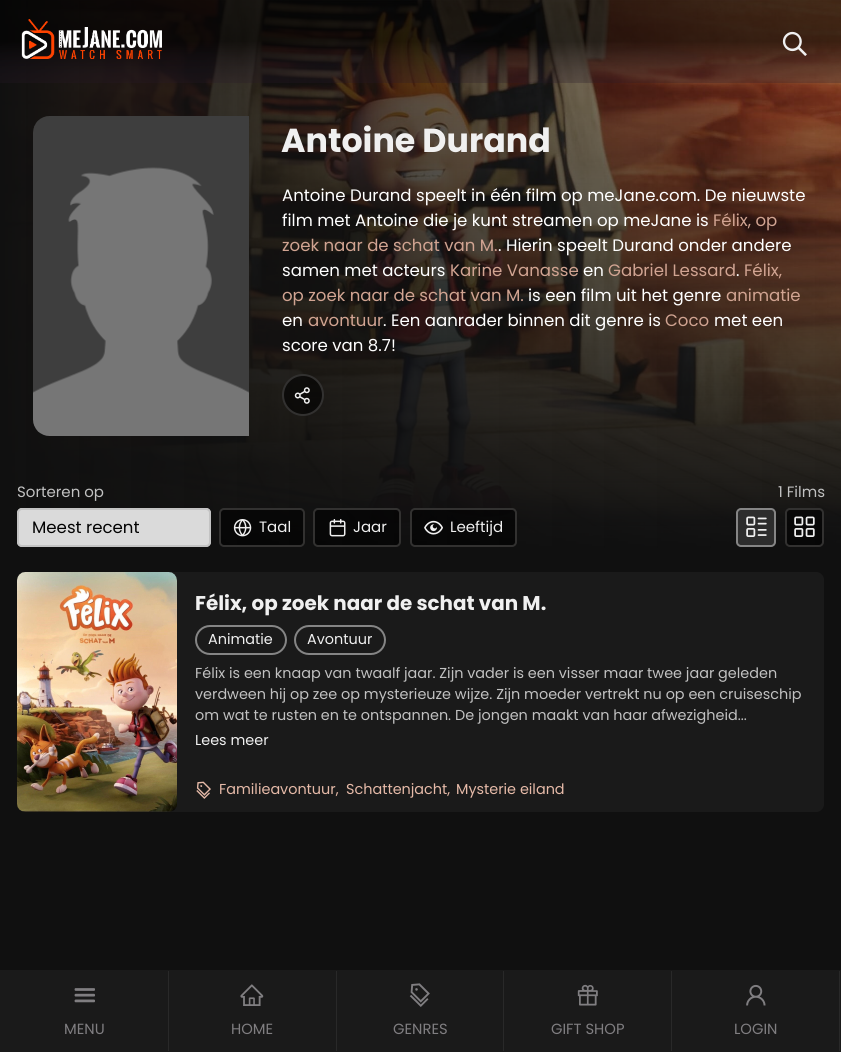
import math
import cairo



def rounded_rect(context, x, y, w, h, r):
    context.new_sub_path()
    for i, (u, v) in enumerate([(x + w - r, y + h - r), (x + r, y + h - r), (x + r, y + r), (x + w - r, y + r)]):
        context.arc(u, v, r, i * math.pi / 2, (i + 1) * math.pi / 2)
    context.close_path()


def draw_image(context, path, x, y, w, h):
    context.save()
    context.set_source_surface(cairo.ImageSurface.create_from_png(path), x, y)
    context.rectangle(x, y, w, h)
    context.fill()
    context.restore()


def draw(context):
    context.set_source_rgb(16 / 255, 16 / 255, 16 / 255)
    context.paint()
    draw_image(context, "images/1.png", 0, 0, 841, 548)
    draw_image(context, "images/2.png", 33, 116, 216, 320)
    context.set_source_rgba(0, 0, 0, 0.6)
    context.arc(303, 395, 20, 0, 2 * math.pi)
    context.fill_preserve()
    context.set_source_rgb(50 / 255, 49 / 255, 48 / 255)
    context.stroke()
    draw_image(context, "images/3.png", 294, 387, 16, 17)
    context.set_source_rgba(240 / 255, 240 / 255, 240 / 255, 0.9)
    rounded_rect(context, 17, 508, 194, 39, 5)
    context.fill()
    rounded_rect(context, 18, 509, 192, 37, 4)
    context.set_source_rgba(193 / 255, 193 / 255, 193 / 255, 0.9)
    context.stroke()
    context.set_source_rgba(0, 0, 0, 0.6)
    rounded_rect(context, 220, 509, 84, 37, 4)
    context.fill_preserve()
    context.set_source_rgb(50 / 255, 49 / 255, 48 / 255)
    context.stroke()
    draw_image(context, "images/4.png", 233, 519, 19, 18)
    context.set_source_rgba(0, 0, 0, 0.6)
    rounded_rect(context, 314, 509, 86, 37, 4)
    context.fill_preserve()
    context.set_source_rgb(50 / 255, 49 / 255, 48 / 255)
    context.stroke()
    draw_image(context, "images/5.png", 329, 519, 17, 18)
    context.set_source_rgba(0, 0, 0, 0.6)
    rounded_rect(context, 411, 509, 105, 37, 4)
    context.fill_preserve()
    context.set_source_rgb(50 / 255, 49 / 255, 48 / 255)
    context.stroke()
    draw_image(context, "images/6.png", 424, 520, 19, 15)
    context.set_source_rgb(45 / 255, 45 / 255, 45 / 255)
    rounded_rect(context, 737, 509, 38, 37, 4)
    context.fill_preserve()
    context.set_source_rgb(133 / 255, 133 / 255, 133 / 255)
    context.stroke()
    draw_image(context, "images/7.png", 746, 516, 21, 21)
    context.set_source_rgba(0, 0, 0, 0.6)
    rounded_rect(context, 786, 509, 37, 37, 4)
    context.fill_preserve()
    context.set_source_rgb(50 / 255, 49 / 255, 48 / 255)
    context.stroke()
    draw_image(context, "images/8.png", 794, 516, 21, 21)
    context.set_source_rgb(26 / 255, 26 / 255, 26 / 255)
    context.new_path()
    context.move_to(25, 572)
    context.line_to(177, 572)
    context.line_to(177, 812)
    context.line_to(25, 812)
    context.curve_to(20.5, 812, 17, 808.5, 17, 804)
    context.line_to(17, 580)
    context.curve_to(17, 575.5, 20.5, 572, 25, 572)
    context.close_path()
    context.fill()
    context.set_source_rgb(16 / 255, 16 / 255, 16 / 255)
    rounded_rect(context, 17, 572, 160, 240, 8)
    context.fill()
    draw_image(context, "images/9.png", 17, 572, 160, 240)
    context.set_source_rgb(26 / 255, 26 / 255, 26 / 255)
    context.new_path()
    context.move_to(177, 572)
    context.line_to(816, 572)
    context.curve_to(820.5, 572, 824, 575.5, 824, 580)
    context.line_to(824, 804)
    context.curve_to(824, 808.5, 820.5, 812, 816, 812)
    context.line_to(177, 812)
    context.close_path()
    context.fill()
    rounded_rect(context, 196, 626, 90, 28, 14)
    context.set_source_rgb(133 / 255, 133 / 255, 133 / 255)
    context.stroke()
    rounded_rect(context, 295, 626, 90, 28, 14)
    context.stroke()
    draw_image(context, "images/10.png", 196, 781, 15, 18)
    draw_image(context, "images/11.png", 21, 19, 141, 40)
    draw_image(context, "images/12.png", 782, 31, 25, 25)
    context.set_source_rgb(26 / 255, 26 / 255, 26 / 255)
    context.rectangle(0, 970, 841, 82)
    context.fill()
    context.set_source_rgb(41 / 255, 41 / 255, 41 / 255)
    context.rectangle(168, 971, 1, 80)
    context.fill()
    draw_image(context, "images/13.png", 74, 988, 21, 15)
    context.rectangle(336, 971, 1, 80)
    context.fill()
    draw_image(context, "images/14.png", 240, 984, 24, 22)
    context.rectangle(503, 971, 1, 80)
    context.fill()
    draw_image(context, "images/15.png", 409, 983, 21, 24)
    context.rectangle(671, 971, 1, 80)
    context.fill()
    draw_image(context, "images/16.png", 577, 984, 21, 22)
    context.rectangle(839, 971, 1, 80)
    context.fill()
    draw_image(context, "images/17.png", 746, 984, 20, 22)
    context.select_font_face("Poppins", cairo.FontSlant.NORMAL, cairo.FontWeight.BOLD)
    context.set_font_size(33.25)
    context.set_source_rgb(240 / 255, 240 / 255, 240 / 255)
    context.move_to(281, 152)
    context.show_text("Antoine Durand")
    context.select_font_face("Poppins")
    context.set_font_size(16.6)
    context.set_source_rgb(1, 1, 1)
    context.move_to(282, 201)
    context.show_text("Antoine Durand speelt in één film op meJane.com. De nieuwste")
    context.move_to(282, 226)
    context.show_text("film met Antoine die je kunt streamen op meJane is")
    context.set_source_rgb(209 / 255, 164 / 255, 146 / 255)
    context.move_to(713, 226)
    context.show_text("Félix, op")
    context.move_to(282, 251)
    context.show_text("zoek naar de schat van M.")
    context.set_source_rgb(1, 1, 1)
    context.move_to(498, 251)
    context.show_text(". Hierin speelt Durand onder andere")
    context.move_to(282, 276)
    context.show_text("samen met acteurs")
    context.set_source_rgb(209 / 255, 164 / 255, 146 / 255)
    context.move_to(450, 276)
    context.show_text("Karine Vanasse")
    context.set_source_rgb(1, 1, 1)
    context.move_to(583, 276)
    context.show_text("en")
    context.set_source_rgb(209 / 255, 164 / 255, 146 / 255)
    context.move_to(608, 276)
    context.show_text("Gabriel Lessard")
    context.set_source_rgb(1, 1, 1)
    context.move_to(736, 276)
    context.show_text(".")
    context.set_source_rgb(209 / 255, 164 / 255, 146 / 255)
    context.move_to(744, 276)
    context.show_text("Félix,")
    context.move_to(282, 301)
    context.show_text("op zoek naar de schat van M.")
    context.set_source_rgb(1, 1, 1)
    context.move_to(528, 301)
    context.show_text("is een film uit het genre")
    context.set_source_rgb(209 / 255, 164 / 255, 146 / 255)
    context.move_to(726, 301)
    context.show_text("animatie")
    context.set_source_rgb(1, 1, 1)
    context.move_to(282, 326)
    context.show_text("en")
    context.set_source_rgb(209 / 255, 164 / 255, 146 / 255)
    context.move_to(308, 326)
    context.show_text("avontuur")
    context.set_source_rgb(1, 1, 1)
    context.move_to(383, 326)
    context.show_text(". Een aanrader binnen dit genre is")
    context.set_source_rgb(209 / 255, 164 / 255, 146 / 255)
    context.move_to(665, 326)
    context.show_text("Coco")
    context.set_source_rgb(1, 1, 1)
    context.move_to(714, 326)
    context.show_text("met een")
    context.move_to(282, 351)
    context.show_text("score van 8.7!")
    context.set_font_size(15)
    context.set_source_rgb(193 / 255, 193 / 255, 193 / 255)
    context.move_to(17, 497)
    context.show_text("Sorteren op")
    context.set_font_size(16.6)
    context.set_source_rgb(2 / 255, 2 / 255, 2 / 255)
    context.move_to(32, 533)
    context.show_text("Meest recent")
    context.set_font_size(15)
    context.set_source_rgb(240 / 255, 240 / 255, 240 / 255)
    context.move_to(259, 532)
    context.show_text("Taal")
    context.move_to(353, 532)
    context.show_text("Jaar")
    context.move_to(450, 532)
    context.show_text("Leeftijd")
    context.set_source_rgb(193 / 255, 193 / 255, 193 / 255)
    context.move_to(778, 497)
    context.show_text("1 Films")
    context.select_font_face("Poppins", cairo.FontSlant.NORMAL, cairo.FontWeight.BOLD)
    context.set_font_size(19.9)
    context.set_source_rgb(240 / 255, 240 / 255, 240 / 255)
    context.move_to(195, 610)
    context.show_text("Félix, op zoek naar de schat van M.")
    context.select_font_face("Poppins")
    context.set_font_size(14.4)
    context.move_to(208, 644)
    context.show_text("Animatie")
    context.move_to(307, 644)
    context.show_text("Avontuur")
    context.set_source_rgb(193 / 255, 193 / 255, 193 / 255)
    context.move_to(195, 678)
    context.show_text("Félix is een knaap van twaalf jaar. Zijn vader is een visser maar twee jaar geleden")
    context.move_to(195, 699)
    context.show_text("verdween hij op zee op mysterieuze wijze. Zijn moeder vertrekt nu op een cruiseschip")
    context.move_to(195, 720)
    context.show_text("om wat te rusten en te ontspannen. De jongen maakt van haar afwezigheid...")
    context.set_source_rgb(240 / 255, 240 / 255, 240 / 255)
    context.move_to(195, 745)
    context.show_text("Lees meer")
    context.set_source_rgb(230 / 255, 186 / 255, 168 / 255)
    context.move_to(219, 794)
    context.show_text("Familieavontuur,")
    context.move_to(346, 794)
    context.show_text("Schattenjacht,")
    context.move_to(456, 794)
    context.show_text("Mysterie eiland")
    context.set_font_size(14.75)
    context.set_source_rgb(128 / 255, 126 / 255, 129 / 255)
    context.move_to(64, 1034)
    context.show_text("MENU")
    context.move_to(231, 1034)
    context.show_text("HOME")
    context.move_to(393, 1034)
    context.show_text("GENRES")
    context.move_to(551, 1034)
    context.show_text("GIFT SHOP")
    context.move_to(734, 1034)
    context.show_text("LOGIN")


surface = cairo.ImageSurface(cairo.Format.RGB24, 841, 1052)
context = cairo.Context(surface)
options = cairo.FontOptions()
options.set_hint_metrics(cairo.HintMetrics.OFF)
options.set_hint_style(cairo.HintStyle.NONE)
context.set_font_options(options)
context.set_miter_limit(4)
draw(context)
surface.write_to_png("out.png")
